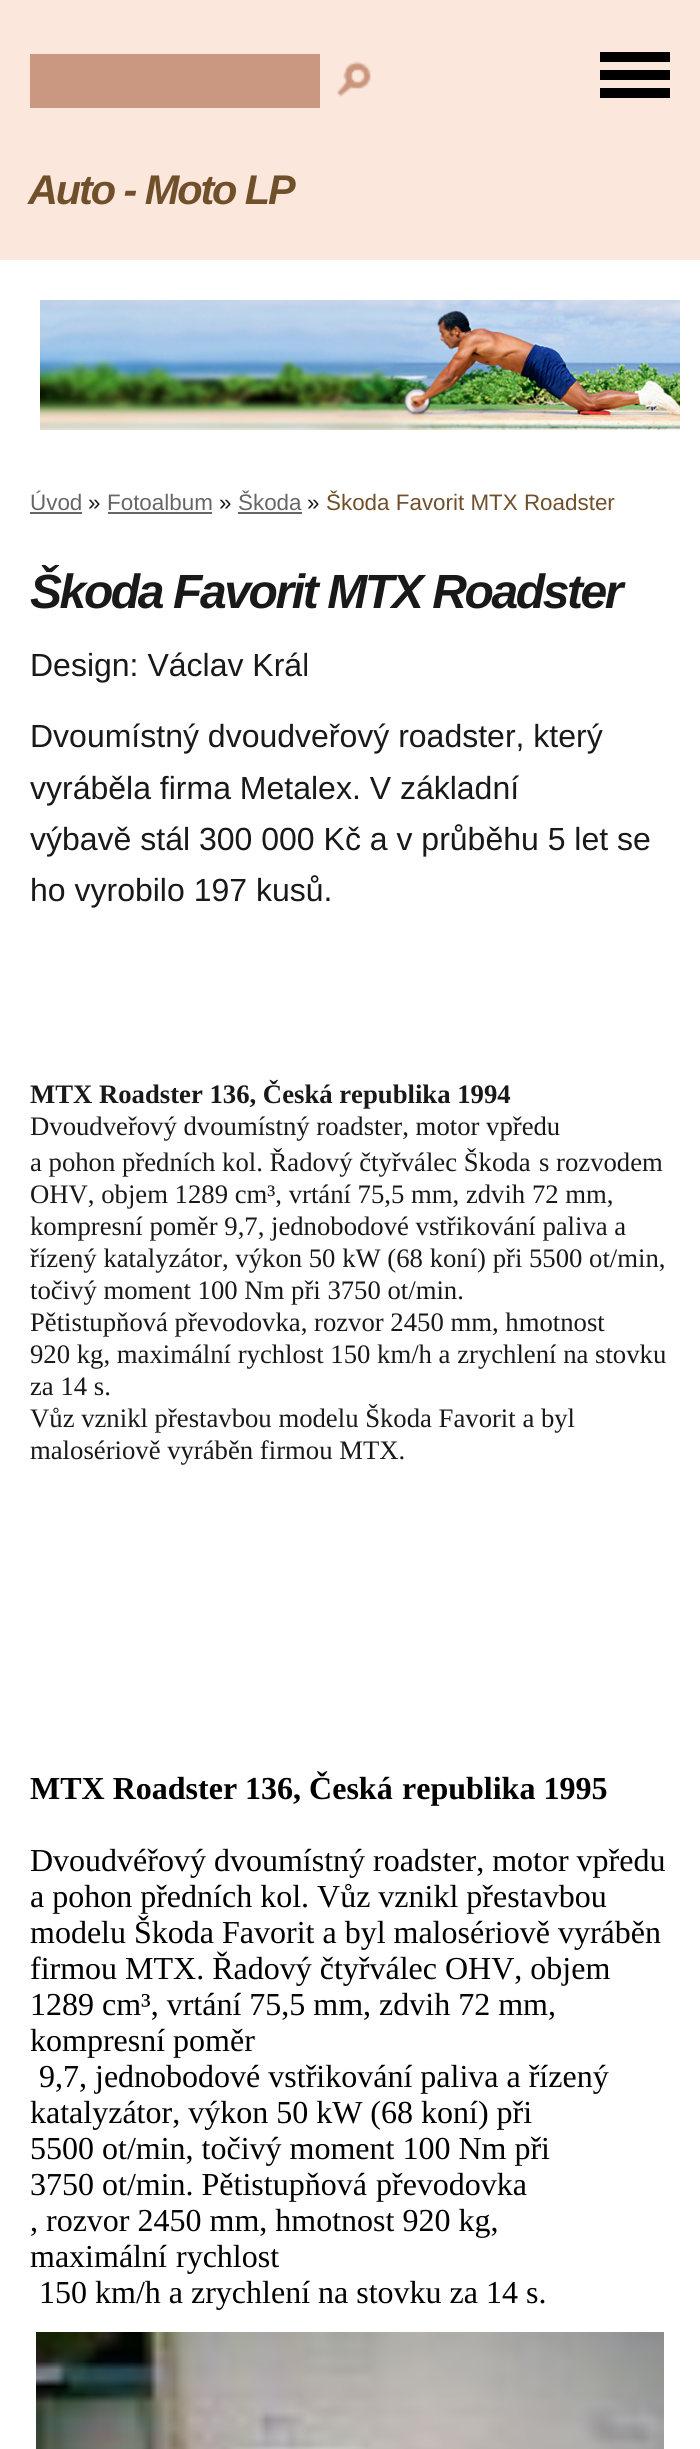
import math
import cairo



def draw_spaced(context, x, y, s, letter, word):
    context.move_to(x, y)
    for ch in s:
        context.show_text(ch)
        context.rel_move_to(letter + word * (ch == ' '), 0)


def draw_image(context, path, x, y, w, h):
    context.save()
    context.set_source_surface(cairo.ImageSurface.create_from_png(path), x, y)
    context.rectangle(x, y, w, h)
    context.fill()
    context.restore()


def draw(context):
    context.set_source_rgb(252 / 255, 231 / 255, 220 / 255)
    context.paint()
    context.set_source_rgb(1, 1, 1)
    context.rectangle(0, 260, 700, 2189)
    context.fill()
    context.set_source_rgb(202 / 255, 151 / 255, 128 / 255)
    context.rectangle(30, 54, 290, 54)
    context.fill()
    draw_image(context, "images/1.png", 337, 61, 34, 36)
    context.set_source_rgb(0, 0, 0)
    context.rectangle(600, 52, 70, 10)
    context.fill()
    context.rectangle(600, 70, 70, 10)
    context.fill()
    context.rectangle(600, 88, 70, 10)
    context.fill()
    draw_image(context, "images/2.png", 40, 300, 640, 130)
    context.set_source_rgb(102 / 255, 102 / 255, 102 / 255)
    context.rectangle(30, 512, 52, 2)
    context.fill()
    context.rectangle(108, 512, 104, 2)
    context.fill()
    context.rectangle(238, 512, 64, 2)
    context.fill()
    draw_image(context, "images/3.png", 36, 2332, 628, 117)
    context.select_font_face("Liberation Sans", cairo.FontSlant.ITALIC, cairo.FontWeight.BOLD)
    context.set_font_size(41.5)
    context.set_source_rgb(112 / 255, 80 / 255, 43 / 255)
    draw_spaced(context, 28, 204, "Auto - Moto LP", -2.1, 0)
    context.select_font_face("Liberation Sans")
    context.set_font_size(22.4)
    context.set_source_rgb(102 / 255, 102 / 255, 102 / 255)
    context.move_to(30, 510)
    context.show_text("Úvod")
    context.set_source_rgb(25 / 255, 25 / 255, 25 / 255)
    context.move_to(88, 510)
    context.show_text("»")
    context.set_source_rgb(102 / 255, 102 / 255, 102 / 255)
    context.move_to(107, 510)
    context.show_text("Fotoalbum")
    context.set_source_rgb(25 / 255, 25 / 255, 25 / 255)
    context.move_to(219, 510)
    context.show_text("»")
    context.set_source_rgb(102 / 255, 102 / 255, 102 / 255)
    context.move_to(238, 510)
    context.show_text("Škoda")
    context.set_source_rgb(25 / 255, 25 / 255, 25 / 255)
    context.move_to(307, 510)
    context.show_text("»")
    context.set_source_rgb(112 / 255, 80 / 255, 43 / 255)
    context.move_to(326, 510)
    context.show_text("Škoda Favorit MTX Roadster")
    context.select_font_face("Liberation Sans", cairo.FontSlant.ITALIC, cairo.FontWeight.BOLD)
    context.set_font_size(48)
    context.set_source_rgb(25 / 255, 25 / 255, 25 / 255)
    draw_spaced(context, 30, 608, "Škoda Favorit MTX Roadster", -2.4, 0)
    context.select_font_face("Liberation Sans")
    context.set_font_size(32)
    context.move_to(30, 676)
    context.show_text("Design: Václav Král")
    context.move_to(30, 747)
    context.show_text("Dvoumístný dvoudveřový roadster, který")
    context.move_to(30, 799)
    context.show_text("vyráběla firma Metalex. V základní")
    context.move_to(30, 850)
    context.show_text("výbavě stál 300 000 Kč a v průběhu 5 let se")
    context.move_to(30, 901)
    context.show_text("ho vyrobilo 197 kusů.")
    context.select_font_face("Liberation Serif", cairo.FontSlant.NORMAL, cairo.FontWeight.BOLD)
    context.set_font_size(26.7)
    context.move_to(30, 1103)
    context.show_text("MTX Roadster 136, Česká republika 1994")
    context.select_font_face("Liberation Serif")
    context.move_to(30, 1135)
    context.show_text("Dvoudveřový dvoumístný roadster, motor vpředu")
    context.move_to(30, 1171)
    context.show_text("a pohon předních kol. Řadový čtyřválec Škoda")
    context.move_to(539, 1171)
    context.show_text("s rozvodem")
    context.move_to(30, 1203)
    context.show_text("OHV, objem 1289 cm³, vrtání 75,5 mm, zdvih 72 mm,")
    context.move_to(30, 1235)
    context.show_text("kompresní poměr 9,7, jednobodové vstřikování paliva a")
    context.move_to(30, 1267)
    context.show_text("řízený katalyzátor, výkon 50 kW (68 koní) při 5500 ot/min,")
    context.move_to(30, 1299)
    context.show_text("točivý moment 100 Nm při 3750 ot/min.")
    context.move_to(30, 1331)
    context.show_text("Pětistupňová převodovka, rozvor 2450 mm, hmotnost")
    context.move_to(30, 1363)
    context.show_text("920 kg, maximální rychlost 150 km/h a zrychlení na stovku")
    context.move_to(30, 1395)
    context.show_text("za 14 s.")
    context.move_to(30, 1427)
    context.show_text("Vůz vznikl přestavbou modelu Škoda Favorit a byl")
    context.move_to(30, 1459)
    context.show_text("malosériově vyráběn firmou MTX.")
    context.select_font_face("Liberation Serif", cairo.FontSlant.NORMAL, cairo.FontWeight.BOLD)
    context.set_font_size(32)
    context.set_source_rgb(0, 0, 0)
    context.move_to(30, 1799)
    context.show_text("MTX Roadster 136, Česká")
    context.move_to(402, 1799)
    context.show_text("republika 1995")
    context.select_font_face("Liberation Serif")
    context.move_to(30, 1871)
    context.show_text("Dvoudvéřový dvoumístný roadster, motor vpředu")
    context.move_to(30, 1907)
    context.show_text("a pohon předních kol. Vůz vznikl přestavbou")
    context.move_to(30, 1943)
    context.show_text("modelu Škoda Favorit a byl malosériově vyráběn")
    context.move_to(30, 1979)
    context.show_text("firmou MTX. Řadový čtyřválec OHV, objem")
    context.move_to(30, 2015)
    context.show_text("1289 cm³, vrtání 75,5 mm, zdvih 72 mm,")
    context.move_to(30, 2051)
    context.show_text("kompresní poměr")
    context.move_to(39, 2087)
    context.show_text("9,7, jednobodové vstřikování paliva a řízený")
    context.move_to(30, 2123)
    context.show_text("katalyzátor, výkon 50 kW (68 koní) při")
    context.move_to(30, 2159)
    context.show_text("5500 ot/min, točivý moment 100 Nm při")
    context.move_to(30, 2195)
    context.show_text("3750 ot/min. Pětistupňová")
    context.move_to(376, 2195)
    context.show_text("převodovka")
    context.move_to(30, 2231)
    context.show_text(", rozvor 2450 mm, hmotnost 920 kg,")
    context.move_to(30, 2267)
    context.show_text("maximální")
    context.move_to(176, 2267)
    context.show_text("rychlost")
    context.move_to(39, 2303)
    context.show_text("150 km/h a zrychlení na stovku za 14 s.")


surface = cairo.ImageSurface(cairo.Format.RGB24, 700, 2449)
context = cairo.Context(surface)
options = cairo.FontOptions()
options.set_hint_metrics(cairo.HintMetrics.OFF)
options.set_hint_style(cairo.HintStyle.NONE)
context.set_font_options(options)
context.set_miter_limit(4)
draw(context)
surface.write_to_png("out.png")
